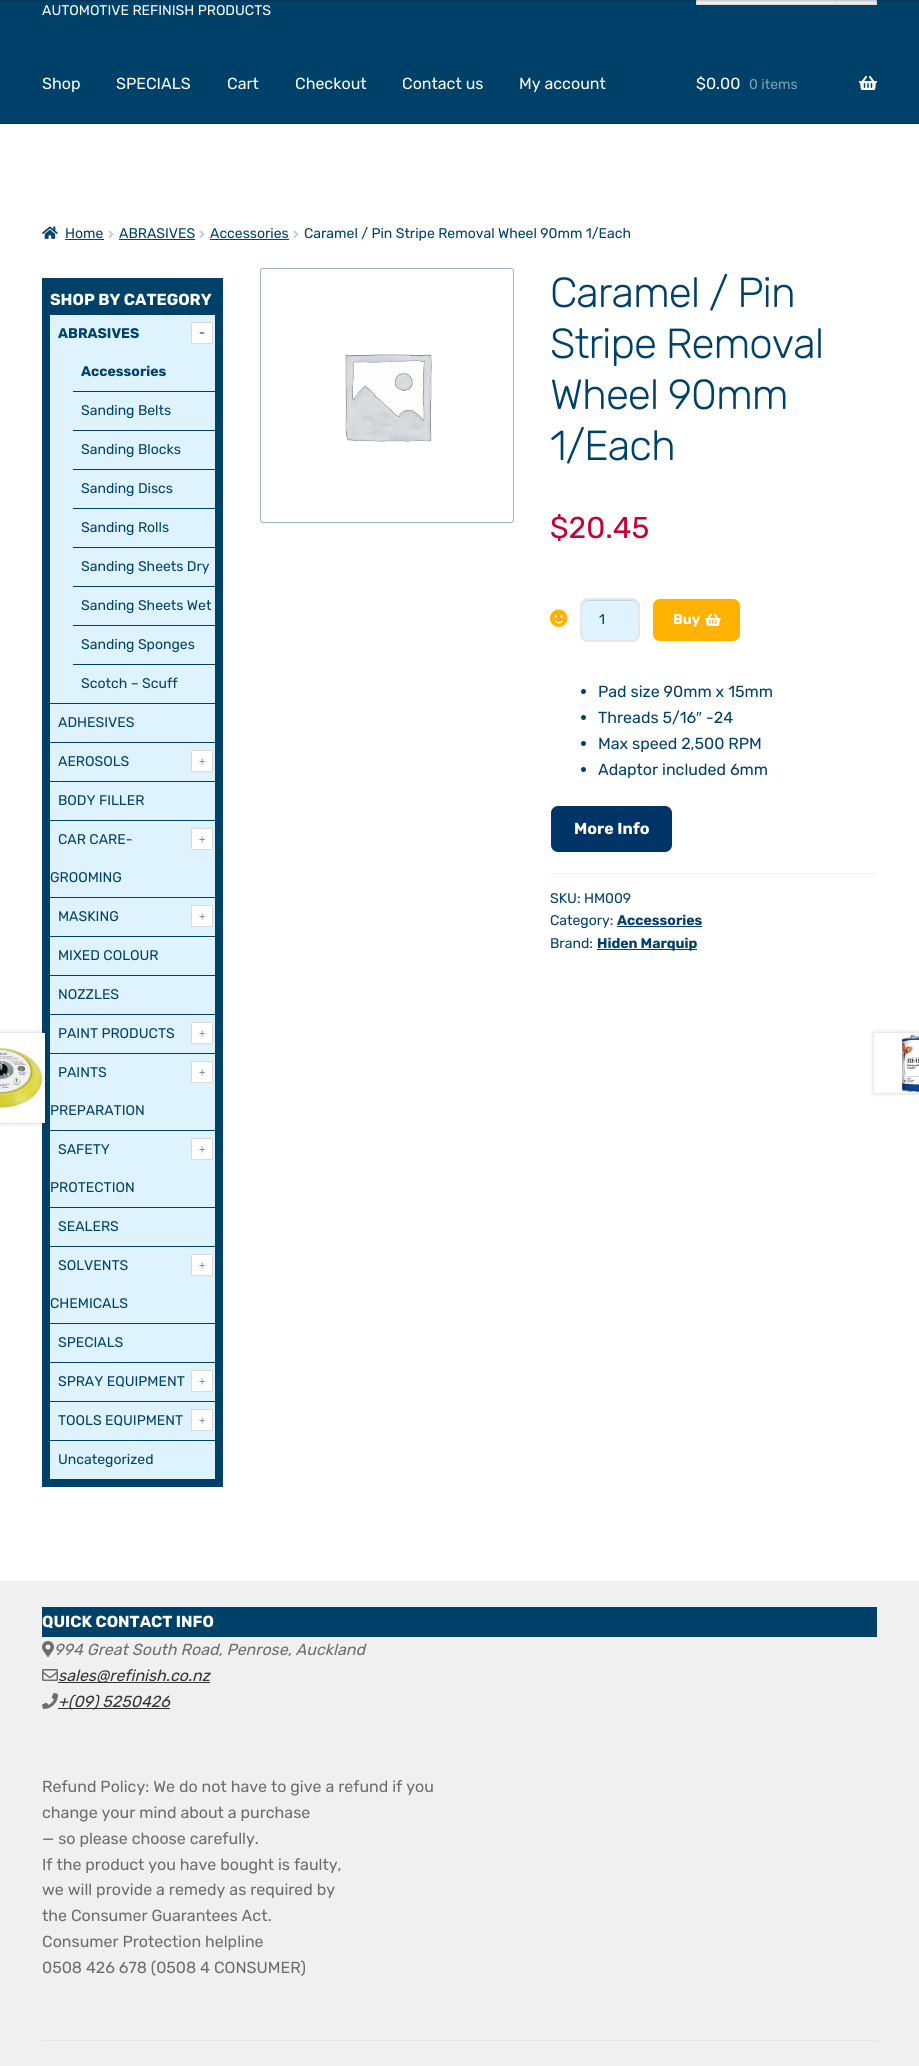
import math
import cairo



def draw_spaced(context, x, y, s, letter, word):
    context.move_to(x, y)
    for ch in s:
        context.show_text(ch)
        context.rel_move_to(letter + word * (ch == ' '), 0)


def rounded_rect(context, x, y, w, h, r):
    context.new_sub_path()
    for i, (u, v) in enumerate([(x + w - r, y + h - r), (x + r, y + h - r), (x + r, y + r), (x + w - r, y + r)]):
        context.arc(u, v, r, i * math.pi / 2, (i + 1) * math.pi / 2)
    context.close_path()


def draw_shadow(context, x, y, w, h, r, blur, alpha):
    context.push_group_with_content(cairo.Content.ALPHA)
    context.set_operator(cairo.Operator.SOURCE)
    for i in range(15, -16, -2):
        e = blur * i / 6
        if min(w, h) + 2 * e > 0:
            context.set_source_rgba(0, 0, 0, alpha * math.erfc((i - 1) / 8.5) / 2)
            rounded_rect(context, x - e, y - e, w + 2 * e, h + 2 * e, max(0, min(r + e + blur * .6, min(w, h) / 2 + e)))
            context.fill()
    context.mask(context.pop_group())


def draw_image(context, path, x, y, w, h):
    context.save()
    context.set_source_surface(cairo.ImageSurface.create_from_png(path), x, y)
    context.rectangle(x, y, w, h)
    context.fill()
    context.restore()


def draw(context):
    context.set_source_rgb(1, 1, 1)
    context.paint()
    context.set_source_rgb(0, 65 / 255, 106 / 255)
    context.rectangle(0, 0, 919, 123)
    context.fill()
    context.set_source_rgb(237 / 255, 237 / 255, 237 / 255)
    context.rectangle(835.5, -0.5, 41, 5)
    context.fill_preserve()
    context.set_source_rgb(216 / 255, 216 / 255, 216 / 255)
    context.set_line_width(1)
    context.stroke()
    context.set_source_rgb(242 / 255, 242 / 255, 242 / 255)
    context.rectangle(696.5, -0.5, 139, 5)
    context.fill_preserve()
    context.set_source_rgb(216 / 255, 216 / 255, 216 / 255)
    context.stroke()
    context.set_source_rgb(0, 0, 0)
    draw_shadow(context, 0, -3, 919, 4, 0, 1, 0.2)
    context.set_source_rgb(0, 50 / 255, 91 / 255)
    context.rectangle(0, 123, 919, 1)
    context.fill()
    draw_image(context, "images/1.png", 859, 76, 18, 14)
    draw_image(context, "images/2.png", 42, 226, 16, 13)
    context.set_source_rgb(5 / 255, 70 / 255, 111 / 255)
    context.rectangle(65, 239, 39, 1)
    context.fill()
    draw_image(context, "images/3.png", 108, 230, 6, 8)
    context.rectangle(119, 239, 76, 1)
    context.fill()
    draw_image(context, "images/3.png", 199, 230, 6, 8)
    context.rectangle(210, 239, 79, 1)
    context.fill()
    draw_image(context, "images/3.png", 293, 230, 6, 8)
    context.rectangle(46, 282, 173, 1201)
    context.set_source_rgb(0, 65 / 255, 106 / 255)
    context.set_line_width(8)
    context.stroke()
    context.rectangle(50, 286, 165, 29)
    context.fill()
    context.set_source_rgb(223 / 255, 243 / 255, 1)
    context.rectangle(50, 315, 165, 388)
    context.fill()
    context.set_source_rgb(0, 65 / 255, 106 / 255)
    context.rectangle(50, 703, 165, 1)
    context.fill()
    draw_image(context, "images/4.png", 191, 322, 22, 22)
    context.rectangle(73, 391, 142, 1)
    context.fill()
    context.rectangle(73, 430, 142, 1)
    context.fill()
    context.rectangle(73, 469, 142, 1)
    context.fill()
    context.rectangle(73, 508, 142, 1)
    context.fill()
    context.rectangle(73, 547, 142, 1)
    context.fill()
    context.rectangle(73, 586, 142, 1)
    context.fill()
    context.rectangle(73, 625, 142, 1)
    context.fill()
    context.rectangle(73, 664, 142, 1)
    context.fill()
    context.set_source_rgb(223 / 255, 243 / 255, 1)
    context.rectangle(50, 704, 165, 38)
    context.fill()
    context.set_source_rgb(0, 65 / 255, 106 / 255)
    context.rectangle(50, 742, 165, 1)
    context.fill()
    context.set_source_rgb(223 / 255, 243 / 255, 1)
    context.rectangle(50, 743, 165, 38)
    context.fill()
    context.set_source_rgb(0, 65 / 255, 106 / 255)
    context.rectangle(50, 781, 165, 1)
    context.fill()
    draw_image(context, "images/5.png", 191, 750, 22, 22)
    context.set_source_rgb(223 / 255, 243 / 255, 1)
    context.rectangle(50, 782, 165, 38)
    context.fill()
    context.set_source_rgb(0, 65 / 255, 106 / 255)
    context.rectangle(50, 820, 165, 1)
    context.fill()
    context.set_source_rgb(223 / 255, 243 / 255, 1)
    context.rectangle(50, 821, 165, 76)
    context.fill()
    context.set_source_rgb(0, 65 / 255, 106 / 255)
    context.rectangle(50, 897, 165, 1)
    context.fill()
    draw_image(context, "images/5.png", 191, 828, 22, 22)
    context.set_source_rgb(223 / 255, 243 / 255, 1)
    context.rectangle(50, 898, 165, 38)
    context.fill()
    context.set_source_rgb(0, 65 / 255, 106 / 255)
    context.rectangle(50, 936, 165, 1)
    context.fill()
    draw_image(context, "images/5.png", 191, 905, 22, 22)
    context.set_source_rgb(223 / 255, 243 / 255, 1)
    context.rectangle(50, 937, 165, 38)
    context.fill()
    context.set_source_rgb(0, 65 / 255, 106 / 255)
    context.rectangle(50, 975, 165, 1)
    context.fill()
    context.set_source_rgb(223 / 255, 243 / 255, 1)
    context.rectangle(50, 976, 165, 38)
    context.fill()
    context.set_source_rgb(0, 65 / 255, 106 / 255)
    context.rectangle(50, 1014, 165, 1)
    context.fill()
    context.set_source_rgb(223 / 255, 243 / 255, 1)
    context.rectangle(50, 1015, 165, 38)
    context.fill()
    context.set_source_rgb(0, 65 / 255, 106 / 255)
    context.rectangle(50, 1053, 165, 1)
    context.fill()
    draw_image(context, "images/5.png", 191, 1022, 22, 22)
    context.set_source_rgb(223 / 255, 243 / 255, 1)
    context.rectangle(50, 1054, 165, 76)
    context.fill()
    context.set_source_rgb(0, 65 / 255, 106 / 255)
    context.rectangle(50, 1130, 165, 1)
    context.fill()
    draw_image(context, "images/5.png", 191, 1061, 22, 22)
    context.set_source_rgb(223 / 255, 243 / 255, 1)
    context.rectangle(50, 1131, 165, 76)
    context.fill()
    context.set_source_rgb(0, 65 / 255, 106 / 255)
    context.rectangle(50, 1207, 165, 1)
    context.fill()
    draw_image(context, "images/5.png", 191, 1138, 22, 22)
    context.set_source_rgb(223 / 255, 243 / 255, 1)
    context.rectangle(50, 1208, 165, 38)
    context.fill()
    context.set_source_rgb(0, 65 / 255, 106 / 255)
    context.rectangle(50, 1246, 165, 1)
    context.fill()
    context.set_source_rgb(223 / 255, 243 / 255, 1)
    context.rectangle(50, 1247, 165, 76)
    context.fill()
    context.set_source_rgb(0, 65 / 255, 106 / 255)
    context.rectangle(50, 1323, 165, 1)
    context.fill()
    draw_image(context, "images/5.png", 191, 1254, 22, 22)
    context.set_source_rgb(223 / 255, 243 / 255, 1)
    context.rectangle(50, 1324, 165, 38)
    context.fill()
    context.set_source_rgb(0, 65 / 255, 106 / 255)
    context.rectangle(50, 1362, 165, 1)
    context.fill()
    context.set_source_rgb(223 / 255, 243 / 255, 1)
    context.rectangle(50, 1363, 165, 38)
    context.fill()
    context.set_source_rgb(0, 65 / 255, 106 / 255)
    context.rectangle(50, 1401, 165, 1)
    context.fill()
    draw_image(context, "images/5.png", 191, 1370, 22, 22)
    context.set_source_rgb(223 / 255, 243 / 255, 1)
    context.rectangle(50, 1402, 165, 38)
    context.fill()
    context.set_source_rgb(0, 65 / 255, 106 / 255)
    context.rectangle(50, 1440, 165, 1)
    context.fill()
    draw_image(context, "images/5.png", 191, 1409, 22, 22)
    context.set_source_rgb(223 / 255, 243 / 255, 1)
    context.rectangle(50, 1441, 165, 38)
    context.fill()
    rounded_rect(context, 260.5, 268.5, 253, 254, 2.5)
    context.set_source_rgb(153 / 255, 179 / 255, 195 / 255)
    context.set_line_width(1)
    context.stroke()
    draw_image(context, "images/6.png", 345, 354, 87, 88)
    draw_image(context, "images/7.png", 550, 609, 18, 18)
    context.set_source_rgb(223 / 255, 243 / 255, 1)
    rounded_rect(context, 580, 598, 60, 44, 8)
    context.fill()
    context.set_source_rgb(195 / 255, 213 / 255, 223 / 255)
    context.new_path()
    context.move_to(588, 601)
    context.line_to(632, 601)
    context.curve_to(635, 601, 638, 604, 638, 607)
    context.curve_to(638, 599, 631, 600, 625, 600)
    context.line_to(595, 600)
    context.curve_to(589, 600, 582, 599, 582, 607)
    context.curve_to(582, 604, 585, 601, 588, 601)
    context.close_path()
    context.fill()
    rounded_rect(context, 581, 599, 58, 42, 7)
    context.set_source_rgb(231 / 255, 231 / 255, 231 / 255)
    context.set_line_width(2)
    context.stroke()
    context.set_source_rgb(1, 178 / 255, 0)
    rounded_rect(context, 652.5, 598.5, 88, 43, 7.5)
    context.fill_preserve()
    context.set_source_rgb(1, 1, 1)
    context.set_line_width(1)
    context.stroke()
    draw_image(context, "images/8.png", 705, 613, 16, 13)
    context.set_source_rgb(0, 65 / 255, 106 / 255)
    context.arc(583.5, 691.5, 2.5, 0, 2 * math.pi)
    context.fill()
    context.arc(583.5, 717.5, 2.5, 0, 2 * math.pi)
    context.fill()
    context.arc(583.5, 743.5, 2.5, 0, 2 * math.pi)
    context.fill()
    context.arc(583.5, 769.5, 2.5, 0, 2 * math.pi)
    context.fill()
    context.set_source_rgb(0, 51 / 255, 102 / 255)
    rounded_rect(context, 550.5, 805.5, 122, 47, 7.5)
    context.fill_preserve()
    context.set_source_rgb(1, 1, 1)
    context.stroke()
    context.set_source_rgb(242 / 255, 242 / 255, 242 / 255)
    context.rectangle(550, 873, 327, 1)
    context.fill()
    context.set_source_rgb(5 / 255, 70 / 255, 111 / 255)
    context.rectangle(617, 926, 85, 1)
    context.fill()
    context.rectangle(597, 949, 100, 1)
    context.fill()
    context.set_source_rgb(0, 0, 0)
    draw_shadow(context, -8, 1033, 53, 90, 0, 2.5, 0.2)
    context.set_source_rgb(1, 1, 1)
    context.rectangle(0, 1033, 45, 90)
    context.fill()
    draw_image(context, "images/9.png", 0, 1046, 44, 63)
    context.save()
    context.set_fill_rule(cairo.FillRule.EVEN_ODD)
    context.new_path()
    context.move_to(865, 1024)
    context.line_to(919, 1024)
    context.line_to(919, 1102)
    context.line_to(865, 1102)
    context.close_path()
    context.move_to(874, 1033)
    context.line_to(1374, 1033)
    context.line_to(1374, 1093)
    context.line_to(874, 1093)
    context.close_path()
    context.clip()
    context.set_source_rgb(0, 0, 0)
    draw_shadow(context, 874, 1033, 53, 60, 0, 2.5, 0.2)
    context.restore()
    draw_image(context, "images/10.png", 901, 1034, 18, 59)
    context.set_source_rgb(240 / 255, 240 / 255, 240 / 255)
    context.rectangle(0, 1581, 919, 485)
    context.fill()
    context.set_source_rgb(228 / 255, 228 / 255, 228 / 255)
    context.rectangle(42, 2040, 835, 1)
    context.fill()
    context.set_source_rgb(0, 65 / 255, 106 / 255)
    context.rectangle(42, 1607, 835, 29)
    context.fill()
    context.set_source_rgb(0, 62 / 255, 101 / 255)
    context.rectangle(42, 1636, 835, 1)
    context.fill()
    draw_image(context, "images/11.png", 42, 1641, 12, 16)
    draw_image(context, "images/12.png", 42, 1669, 16, 12)
    context.set_source_rgb(51 / 255, 51 / 255, 51 / 255)
    context.rectangle(58, 1682, 152, 1)
    context.fill()
    draw_image(context, "images/13.png", 42, 1693, 16, 16)
    context.rectangle(58, 1708, 112, 1)
    context.fill()
    context.select_font_face("Rubik")
    context.set_font_size(14)
    context.set_source_rgb(1, 1, 1)
    context.move_to(42, 15)
    context.show_text("AUTOMOTIVE REFINISH PRODUCTS")
    context.set_font_size(16)
    context.move_to(42, 89)
    context.show_text("Shop")
    context.move_to(116, 89)
    context.show_text("SPECIALS")
    context.move_to(227, 89)
    context.show_text("Cart")
    context.move_to(295, 89)
    context.show_text("Checkout")
    context.move_to(402, 89)
    context.show_text("Contact us")
    context.move_to(519, 89)
    context.show_text("My account")
    context.move_to(696, 89)
    context.show_text("$0.00")
    context.set_font_size(14)
    context.set_source_rgb(128 / 255, 160 / 255, 181 / 255)
    context.move_to(749, 89)
    context.show_text("0 items")
    context.set_source_rgb(0, 65 / 255, 106 / 255)
    context.move_to(65, 238)
    context.show_text("Home")
    context.move_to(119, 238)
    context.show_text("ABRASIVES")
    context.move_to(210, 238)
    context.show_text("Accessories")
    context.move_to(304, 238)
    context.show_text("Caramel / Pin Stripe Removal Wheel 90mm 1/Each")
    context.select_font_face("Rubik", cairo.FontSlant.NORMAL, cairo.FontWeight.BOLD)
    context.set_font_size(16)
    context.set_source_rgb(1, 1, 1)
    context.move_to(50, 305)
    context.show_text("SHOP BY CATEGORY")
    context.set_font_size(14)
    context.set_source_rgb(0, 65 / 255, 106 / 255)
    context.move_to(58, 338)
    context.show_text("ABRASIVES")
    context.move_to(81, 376)
    context.show_text("Accessories")
    context.select_font_face("Rubik")
    context.move_to(81, 415)
    context.show_text("Sanding Belts")
    context.move_to(81, 454)
    context.show_text("Sanding Blocks")
    context.move_to(81, 493)
    context.show_text("Sanding Discs")
    context.move_to(81, 532)
    context.show_text("Sanding Rolls")
    context.move_to(81, 571)
    context.show_text("Sanding Sheets Dry")
    context.move_to(81, 610)
    context.show_text("Sanding Sheets Wet")
    context.move_to(81, 649)
    context.show_text("Sanding Sponges")
    context.move_to(81, 688)
    context.show_text("Scotch – Scuff")
    context.move_to(58, 727)
    context.show_text("ADHESIVES")
    context.move_to(58, 766)
    context.show_text("AEROSOLS")
    context.move_to(58, 805)
    context.show_text("BODY FILLER")
    context.move_to(58, 844)
    context.show_text("CAR CARE-")
    context.move_to(50, 882)
    context.show_text("GROOMING")
    context.move_to(58, 921)
    context.show_text("MASKING")
    context.move_to(58, 960)
    context.show_text("MIXED COLOUR")
    context.move_to(58, 999)
    context.show_text("NOZZLES")
    context.move_to(58, 1038)
    context.show_text("PAINT PRODUCTS")
    context.move_to(58, 1077)
    context.show_text("PAINTS")
    context.move_to(50, 1115)
    context.show_text("PREPARATION")
    context.move_to(58, 1154)
    context.show_text("SAFETY")
    context.move_to(50, 1192)
    context.show_text("PROTECTION")
    context.move_to(58, 1231)
    context.show_text("SEALERS")
    context.move_to(58, 1270)
    context.show_text("SOLVENTS")
    context.move_to(50, 1308)
    context.show_text("CHEMICALS")
    context.move_to(58, 1347)
    context.show_text("SPECIALS")
    context.move_to(58, 1386)
    context.show_text("SPRAY EQUIPMENT")
    context.move_to(58, 1425)
    context.show_text("TOOLS EQUIPMENT")
    context.move_to(58, 1464)
    context.show_text("Uncategorized")
    context.select_font_face("Rubik Light")
    context.set_font_size(42)
    draw_spaced(context, 550, 307, "Caramel / Pin", -1, 0)
    draw_spaced(context, 550, 358, "Stripe Removal", -1, 0)
    draw_spaced(context, 550, 409, "Wheel 90mm", -1, 0)
    draw_spaced(context, 550, 460, "1/Each", -1, 0)
    context.select_font_face("Rubik")
    context.set_font_size(30)
    context.set_source_rgb(196 / 255, 2 / 255, 51 / 255)
    context.move_to(550, 538)
    context.show_text("$20.45")
    context.set_font_size(14)
    context.set_source_rgb(0, 65 / 255, 106 / 255)
    context.move_to(599, 624)
    context.show_text("1")
    context.select_font_face("Rubik", cairo.FontSlant.NORMAL, cairo.FontWeight.BOLD)
    context.set_source_rgb(1, 1, 1)
    context.move_to(673, 624)
    context.show_text("Buy")
    context.select_font_face("Rubik")
    context.set_font_size(16)
    context.set_source_rgb(0, 65 / 255, 106 / 255)
    context.move_to(598, 697)
    context.show_text("Pad size 90mm x 15mm")
    context.move_to(598, 723)
    context.show_text("Threads 5/16")
    context.select_font_face("Liberation Sans")
    context.move_to(696, 723)
    context.show_text("″")
    context.select_font_face("Rubik")
    context.move_to(706, 723)
    context.show_text("-24")
    context.move_to(598, 749)
    context.show_text("Max speed 2,500 RPM")
    context.move_to(598, 775)
    context.show_text("Adaptor included 6mm")
    context.select_font_face("Rubik", cairo.FontSlant.NORMAL, cairo.FontWeight.BOLD)
    context.set_source_rgb(1, 1, 1)
    context.move_to(574, 834)
    context.show_text("More Info")
    context.select_font_face("Rubik")
    context.set_font_size(14)
    context.set_source_rgb(0, 65 / 255, 106 / 255)
    context.move_to(550, 903)
    context.show_text("SKU: HM009")
    context.move_to(550, 925)
    context.show_text("Category:")
    context.select_font_face("Rubik", cairo.FontSlant.NORMAL, cairo.FontWeight.BOLD)
    context.move_to(617, 925)
    context.show_text("Accessories")
    context.select_font_face("Rubik")
    context.move_to(550, 948)
    context.show_text("Brand:")
    context.select_font_face("Rubik", cairo.FontSlant.NORMAL, cairo.FontWeight.BOLD)
    context.move_to(597, 948)
    context.show_text("Hiden Marquip")
    context.set_font_size(16)
    context.set_source_rgb(1, 1, 1)
    context.move_to(42, 1627)
    context.show_text("QUICK CONTACT INFO")
    context.select_font_face("Rubik", cairo.FontSlant.ITALIC)
    context.set_source_rgb(109 / 255, 109 / 255, 109 / 255)
    context.move_to(54, 1655)
    context.show_text("994 Great South Road, Penrose, Auckland")
    context.set_source_rgb(51 / 255, 51 / 255, 51 / 255)
    context.move_to(58, 1681)
    context.show_text("sales@refinish.co.nz")
    context.move_to(58, 1707)
    context.show_text("+(09) 5250426")
    context.select_font_face("Rubik")
    context.set_source_rgb(109 / 255, 109 / 255, 109 / 255)
    context.move_to(42, 1792)
    context.show_text("Refund Policy: We do not have to give a refund if you")
    context.move_to(42, 1818)
    context.show_text("change your mind about a purchase")
    context.move_to(42, 1844)
    context.show_text("— so please choose carefully.")
    context.move_to(42, 1870)
    context.show_text("If the product you have bought is faulty,")
    context.move_to(42, 1895)
    context.show_text("we will provide a remedy as required by")
    context.move_to(42, 1921)
    context.show_text("the Consumer Guarantees Act.")
    context.move_to(42, 1947)
    context.show_text("Consumer Protection helpline")
    context.move_to(42, 1973)
    context.show_text("0508 426 678 (0508 4 CONSUMER)")


surface = cairo.ImageSurface(cairo.Format.RGB24, 919, 2066)
context = cairo.Context(surface)
options = cairo.FontOptions()
options.set_hint_metrics(cairo.HintMetrics.OFF)
options.set_hint_style(cairo.HintStyle.NONE)
context.set_font_options(options)
context.set_miter_limit(4)
draw(context)
surface.write_to_png("out.png")
